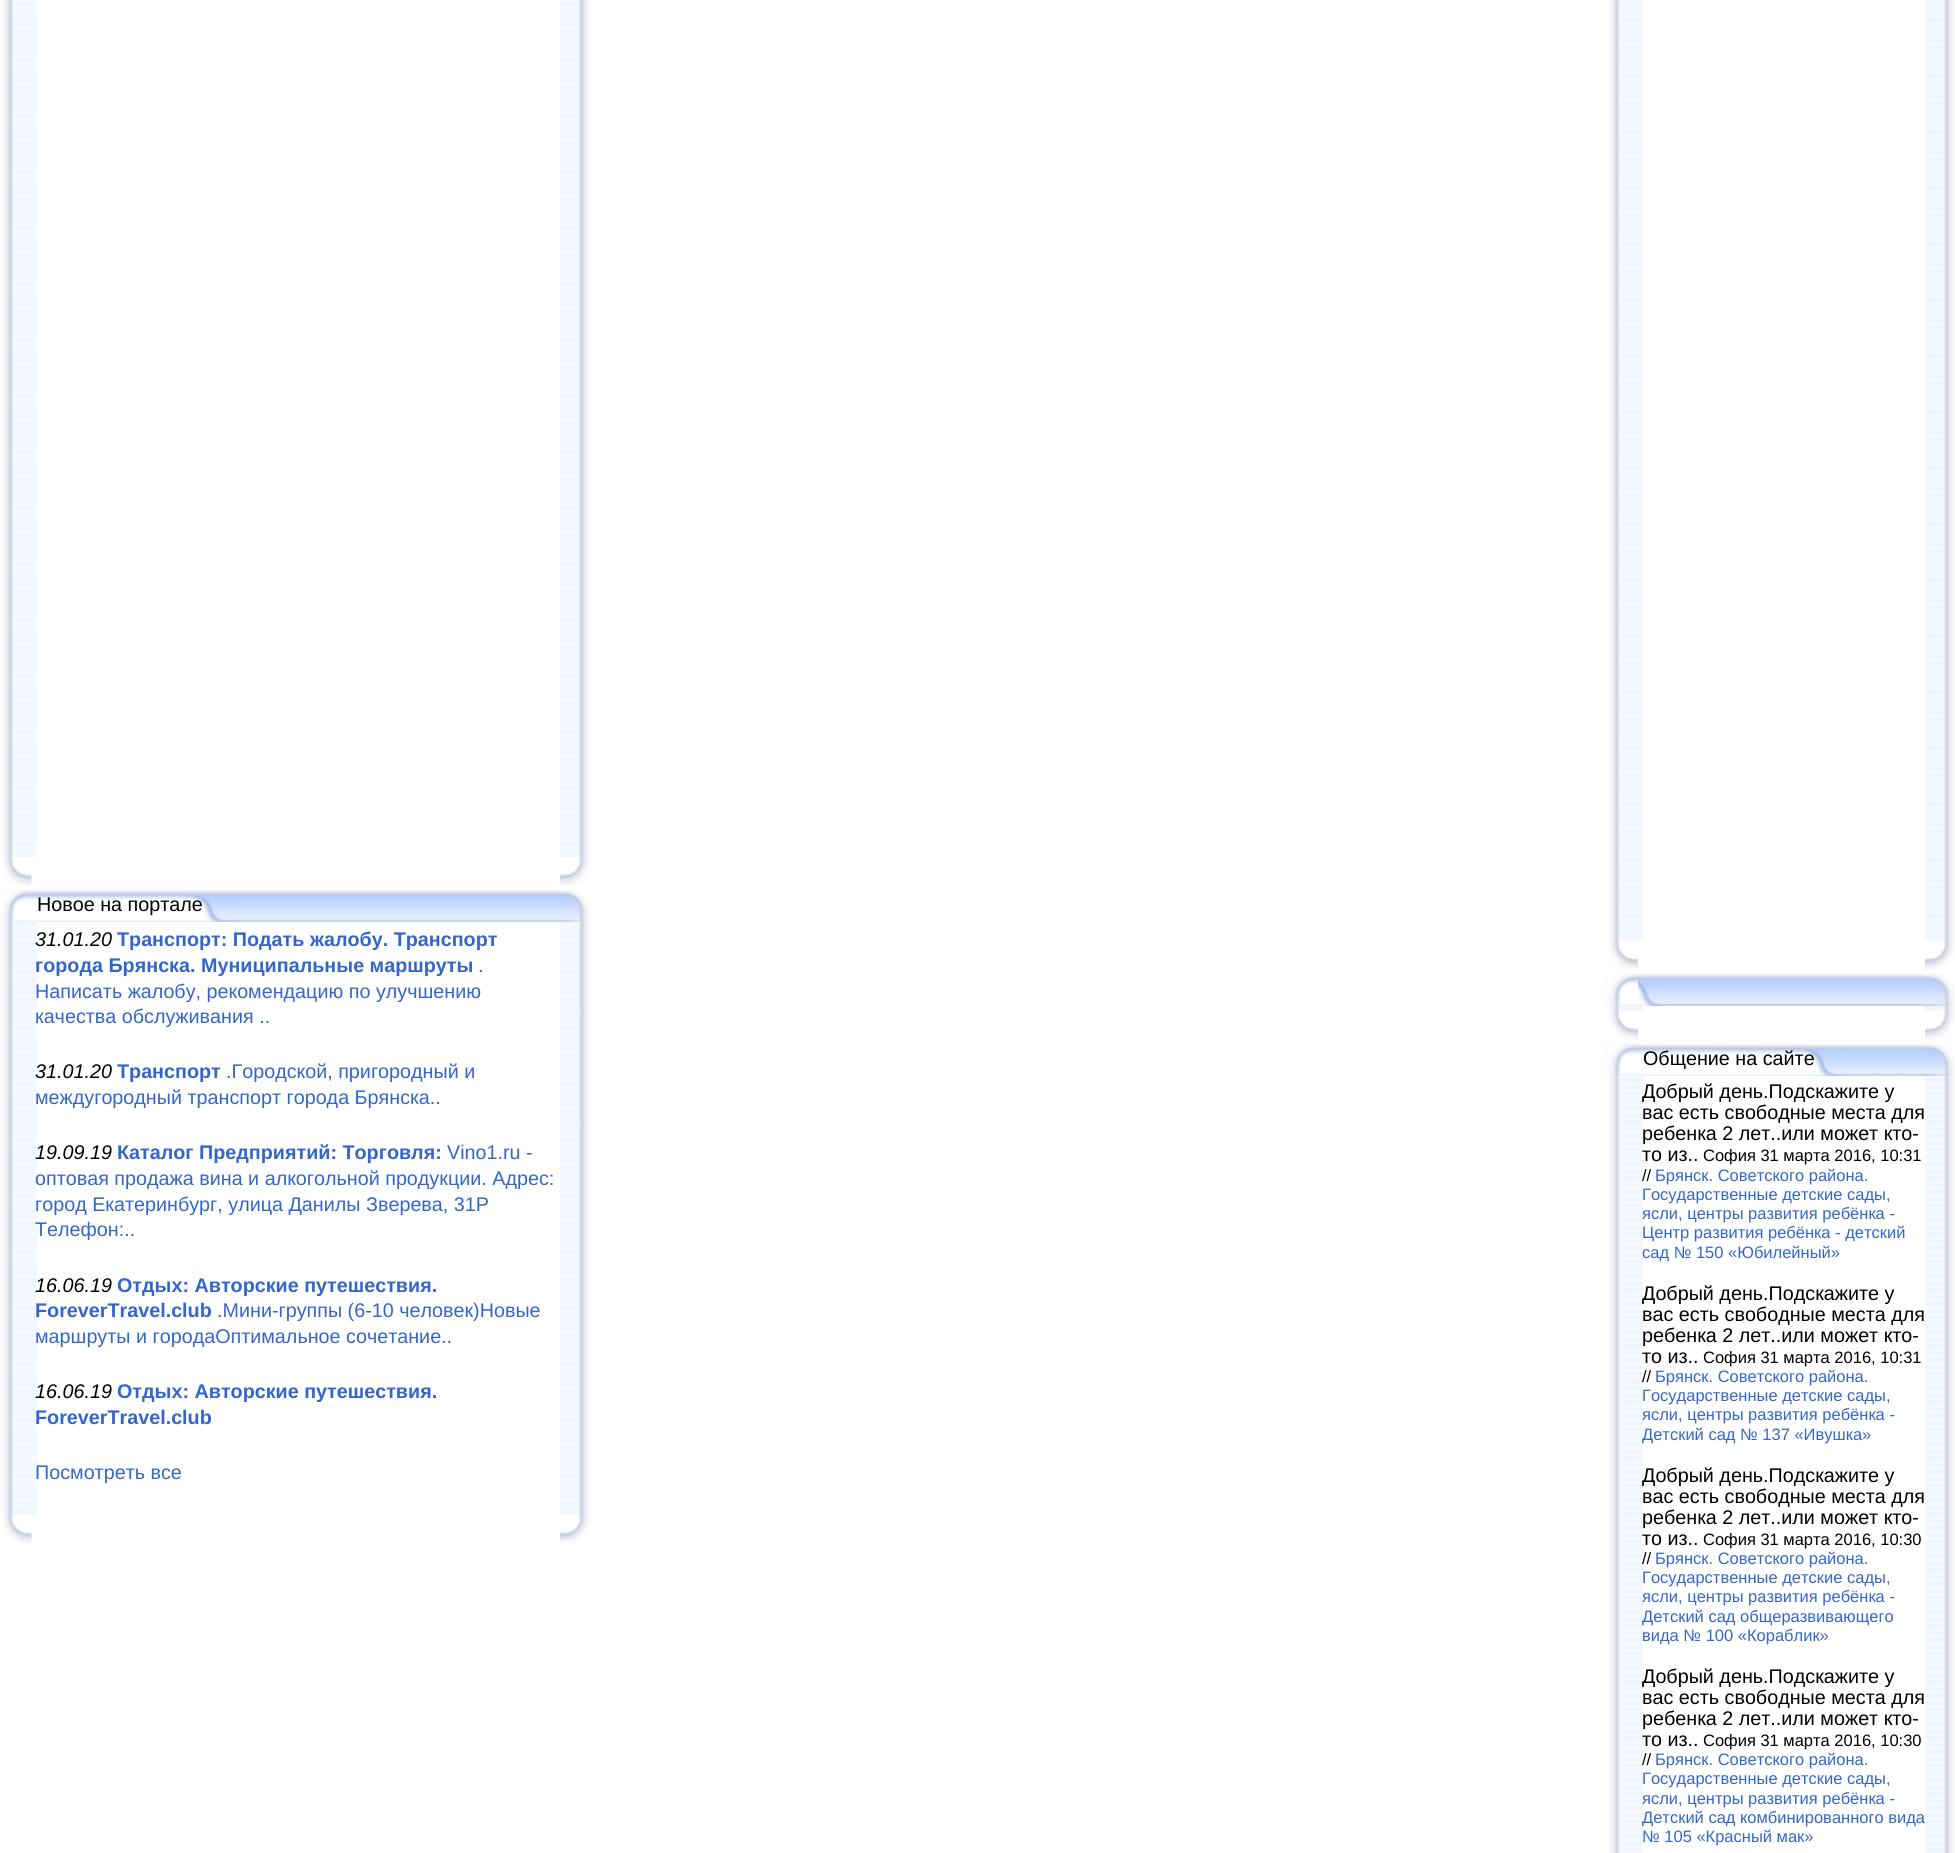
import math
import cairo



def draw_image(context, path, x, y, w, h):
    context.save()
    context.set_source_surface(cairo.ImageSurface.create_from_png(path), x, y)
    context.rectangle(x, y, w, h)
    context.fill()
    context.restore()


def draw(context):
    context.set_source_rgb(1, 1, 1)
    context.paint()
    draw_image(context, "images/1.png", 3, 0, 34, 857)
    draw_image(context, "images/2.png", 560, 0, 29, 857)
    draw_image(context, "images/3.png", 3, 857, 29, 29)
    draw_image(context, "images/4.png", 560, 857, 29, 29)
    draw_image(context, "images/5.png", 0, 890, 560, 32)
    draw_image(context, "images/6.png", 0, 894, 235, 28)
    draw_image(context, "images/9.png", 0, 921, 37, 594)
    draw_image(context, "images/7.png", 0, 890, 31, 32)
    draw_image(context, "images/10.png", 560, 921, 29, 594)
    draw_image(context, "images/8.png", 560, 890, 29, 32)
    draw_image(context, "images/3.png", 3, 1515, 29, 29)
    draw_image(context, "images/4.png", 560, 1515, 29, 29)
    draw_image(context, "images/11.png", 1609, 0, 35, 941)
    draw_image(context, "images/12.png", 1925, 0, 29, 941)
    draw_image(context, "images/13.png", 1609, 941, 29, 29)
    draw_image(context, "images/4.png", 1925, 941, 29, 29)
    draw_image(context, "images/14.png", 1606, 974, 319, 32)
    draw_image(context, "images/15.png", 1606, 975, 64, 31)
    draw_image(context, "images/18.png", 1607, 1005, 37, 6)
    draw_image(context, "images/16.png", 1606, 974, 32, 32)
    draw_image(context, "images/19.png", 1925, 1005, 29, 6)
    draw_image(context, "images/17.png", 1925, 974, 29, 32)
    draw_image(context, "images/13.png", 1609, 1011, 29, 29)
    draw_image(context, "images/4.png", 1925, 1011, 29, 29)
    draw_image(context, "images/20.png", 1606, 1044, 319, 32)
    draw_image(context, "images/21.png", 1606, 1045, 240, 31)
    draw_image(context, "images/24.png", 1607, 1075, 37, 778)
    draw_image(context, "images/22.png", 1606, 1044, 32, 32)
    draw_image(context, "images/25.png", 1925, 1075, 29, 778)
    draw_image(context, "images/23.png", 1925, 1044, 29, 32)
    context.select_font_face("Liberation Sans")
    context.set_font_size(19.75)
    context.set_source_rgb(0, 0, 0)
    context.move_to(37, 911)
    context.show_text("Новое на портале")
    context.select_font_face("Liberation Sans", cairo.FontSlant.ITALIC)
    context.move_to(35, 946)
    context.show_text("31.01.20")
    context.select_font_face("Liberation Sans", cairo.FontSlant.NORMAL, cairo.FontWeight.BOLD)
    context.set_source_rgb(51 / 255, 102 / 255, 204 / 255)
    context.move_to(117, 946)
    context.show_text("Транспорт: Подать жалобу. Транспорт")
    context.move_to(35, 972)
    context.show_text("города Брянска. Муниципальные маршруты")
    context.select_font_face("Liberation Sans")
    context.move_to(478, 972)
    context.show_text(".")
    context.move_to(35, 998)
    context.show_text("Написать жалобу, рекомендацию по улучшению")
    context.move_to(35, 1023)
    context.show_text("качества обслуживания ..")
    context.select_font_face("Liberation Sans", cairo.FontSlant.ITALIC)
    context.set_source_rgb(0, 0, 0)
    context.move_to(35, 1078)
    context.show_text("31.01.20")
    context.select_font_face("Liberation Sans", cairo.FontSlant.NORMAL, cairo.FontWeight.BOLD)
    context.set_source_rgb(51 / 255, 102 / 255, 204 / 255)
    context.move_to(117, 1078)
    context.show_text("Транспорт")
    context.select_font_face("Liberation Sans")
    context.move_to(226, 1078)
    context.show_text(".Городской, пригородный и")
    context.move_to(35, 1104)
    context.show_text("междугородный транспорт города Брянска..")
    context.select_font_face("Liberation Sans", cairo.FontSlant.ITALIC)
    context.set_source_rgb(0, 0, 0)
    context.move_to(35, 1159)
    context.show_text("19.09.19")
    context.select_font_face("Liberation Sans", cairo.FontSlant.NORMAL, cairo.FontWeight.BOLD)
    context.set_source_rgb(51 / 255, 102 / 255, 204 / 255)
    context.move_to(117, 1159)
    context.show_text("Каталог Предприятий: Торговля:")
    context.select_font_face("Liberation Sans")
    context.move_to(447, 1159)
    context.show_text("Vino1.ru -")
    context.move_to(35, 1185)
    context.show_text("оптовая продажа вина и алкогольной продукции. Адрес:")
    context.move_to(35, 1211)
    context.show_text("город Екатеринбург, улица Данилы Зверева, 31Р")
    context.move_to(35, 1236)
    context.show_text("Телефон:..")
    context.select_font_face("Liberation Sans", cairo.FontSlant.ITALIC)
    context.set_source_rgb(0, 0, 0)
    context.move_to(35, 1292)
    context.show_text("16.06.19")
    context.select_font_face("Liberation Sans", cairo.FontSlant.NORMAL, cairo.FontWeight.BOLD)
    context.set_source_rgb(51 / 255, 102 / 255, 204 / 255)
    context.move_to(117, 1292)
    context.show_text("Отдых: Авторские путешествия.")
    context.move_to(35, 1317)
    context.show_text("ForeverTravel.club")
    context.select_font_face("Liberation Sans")
    context.move_to(217, 1317)
    context.show_text(".Мини-группы (6-10 человек)Новые")
    context.move_to(35, 1343)
    context.show_text("маршруты и городаОптимальное сочетание..")
    context.select_font_face("Liberation Sans", cairo.FontSlant.ITALIC)
    context.set_source_rgb(0, 0, 0)
    context.move_to(35, 1398)
    context.show_text("16.06.19")
    context.select_font_face("Liberation Sans", cairo.FontSlant.NORMAL, cairo.FontWeight.BOLD)
    context.set_source_rgb(51 / 255, 102 / 255, 204 / 255)
    context.move_to(117, 1398)
    context.show_text("Отдых: Авторские путешествия.")
    context.move_to(35, 1424)
    context.show_text("ForeverTravel.club")
    context.select_font_face("Liberation Sans")
    context.move_to(35, 1479)
    context.show_text("Посмотреть все")
    context.set_source_rgb(0, 0, 0)
    context.move_to(1643, 1065)
    context.show_text("Общение на сайте")
    context.move_to(1642, 1098)
    context.show_text("Добрый день.Подскажите у")
    context.move_to(1642, 1119)
    context.show_text("вас есть свободные места для")
    context.move_to(1642, 1140)
    context.show_text("ребенка 2 лет..или может кто-")
    context.move_to(1642, 1161)
    context.show_text("то из..")
    context.set_font_size(16.5)
    context.move_to(1703, 1161)
    context.show_text("София 31 марта 2016, 10:31")
    context.move_to(1642, 1181)
    context.show_text("//")
    context.set_source_rgb(51 / 255, 102 / 255, 204 / 255)
    context.move_to(1655, 1181)
    context.show_text("Брянск. Советского района.")
    context.move_to(1642, 1200)
    context.show_text("Государственные детские сады,")
    context.move_to(1642, 1219)
    context.show_text("ясли, центры развития ребёнка -")
    context.move_to(1642, 1238)
    context.show_text("Центр развития ребёнка - детский")
    context.move_to(1642, 1258)
    context.show_text("сад № 150 «Юбилейный»")
    context.set_font_size(19.75)
    context.set_source_rgb(0, 0, 0)
    context.move_to(1642, 1300)
    context.show_text("Добрый день.Подскажите у")
    context.move_to(1642, 1321)
    context.show_text("вас есть свободные места для")
    context.move_to(1642, 1342)
    context.show_text("ребенка 2 лет..или может кто-")
    context.move_to(1642, 1363)
    context.show_text("то из..")
    context.set_font_size(16.5)
    context.move_to(1703, 1363)
    context.show_text("София 31 марта 2016, 10:31")
    context.move_to(1642, 1382)
    context.show_text("//")
    context.set_source_rgb(51 / 255, 102 / 255, 204 / 255)
    context.move_to(1655, 1382)
    context.show_text("Брянск. Советского района.")
    context.move_to(1642, 1401)
    context.show_text("Государственные детские сады,")
    context.move_to(1642, 1420)
    context.show_text("ясли, центры развития ребёнка -")
    context.move_to(1642, 1440)
    context.show_text("Детский сад № 137 «Ивушка»")
    context.set_font_size(19.75)
    context.set_source_rgb(0, 0, 0)
    context.move_to(1642, 1482)
    context.show_text("Добрый день.Подскажите у")
    context.move_to(1642, 1503)
    context.show_text("вас есть свободные места для")
    context.move_to(1642, 1524)
    context.show_text("ребенка 2 лет..или может кто-")
    context.move_to(1642, 1545)
    context.show_text("то из..")
    context.set_font_size(16.5)
    context.move_to(1703, 1545)
    context.show_text("София 31 марта 2016, 10:30")
    context.move_to(1642, 1564)
    context.show_text("//")
    context.set_source_rgb(51 / 255, 102 / 255, 204 / 255)
    context.move_to(1655, 1564)
    context.show_text("Брянск. Советского района.")
    context.move_to(1642, 1583)
    context.show_text("Государственные детские сады,")
    context.move_to(1642, 1602)
    context.show_text("ясли, центры развития ребёнка -")
    context.move_to(1642, 1622)
    context.show_text("Детский сад общеразвивающего")
    context.move_to(1642, 1641)
    context.show_text("вида № 100 «Кораблик»")
    context.set_font_size(19.75)
    context.set_source_rgb(0, 0, 0)
    context.move_to(1642, 1683)
    context.show_text("Добрый день.Подскажите у")
    context.move_to(1642, 1704)
    context.show_text("вас есть свободные места для")
    context.move_to(1642, 1725)
    context.show_text("ребенка 2 лет..или может кто-")
    context.move_to(1642, 1746)
    context.show_text("то из..")
    context.set_font_size(16.5)
    context.move_to(1703, 1746)
    context.show_text("София 31 марта 2016, 10:30")
    context.move_to(1642, 1765)
    context.show_text("//")
    context.set_source_rgb(51 / 255, 102 / 255, 204 / 255)
    context.move_to(1655, 1765)
    context.show_text("Брянск. Советского района.")
    context.move_to(1642, 1784)
    context.show_text("Государственные детские сады,")
    context.move_to(1642, 1804)
    context.show_text("ясли, центры развития ребёнка -")
    context.move_to(1642, 1823)
    context.show_text("Детский сад комбинированного вида")
    context.move_to(1642, 1842)
    context.show_text("№ 105 «Красный мак»")


surface = cairo.ImageSurface(cairo.Format.RGB24, 1955, 1853)
context = cairo.Context(surface)
options = cairo.FontOptions()
options.set_hint_metrics(cairo.HintMetrics.OFF)
options.set_hint_style(cairo.HintStyle.NONE)
context.set_font_options(options)
context.set_miter_limit(4)
draw(context)
surface.write_to_png("out.png")
